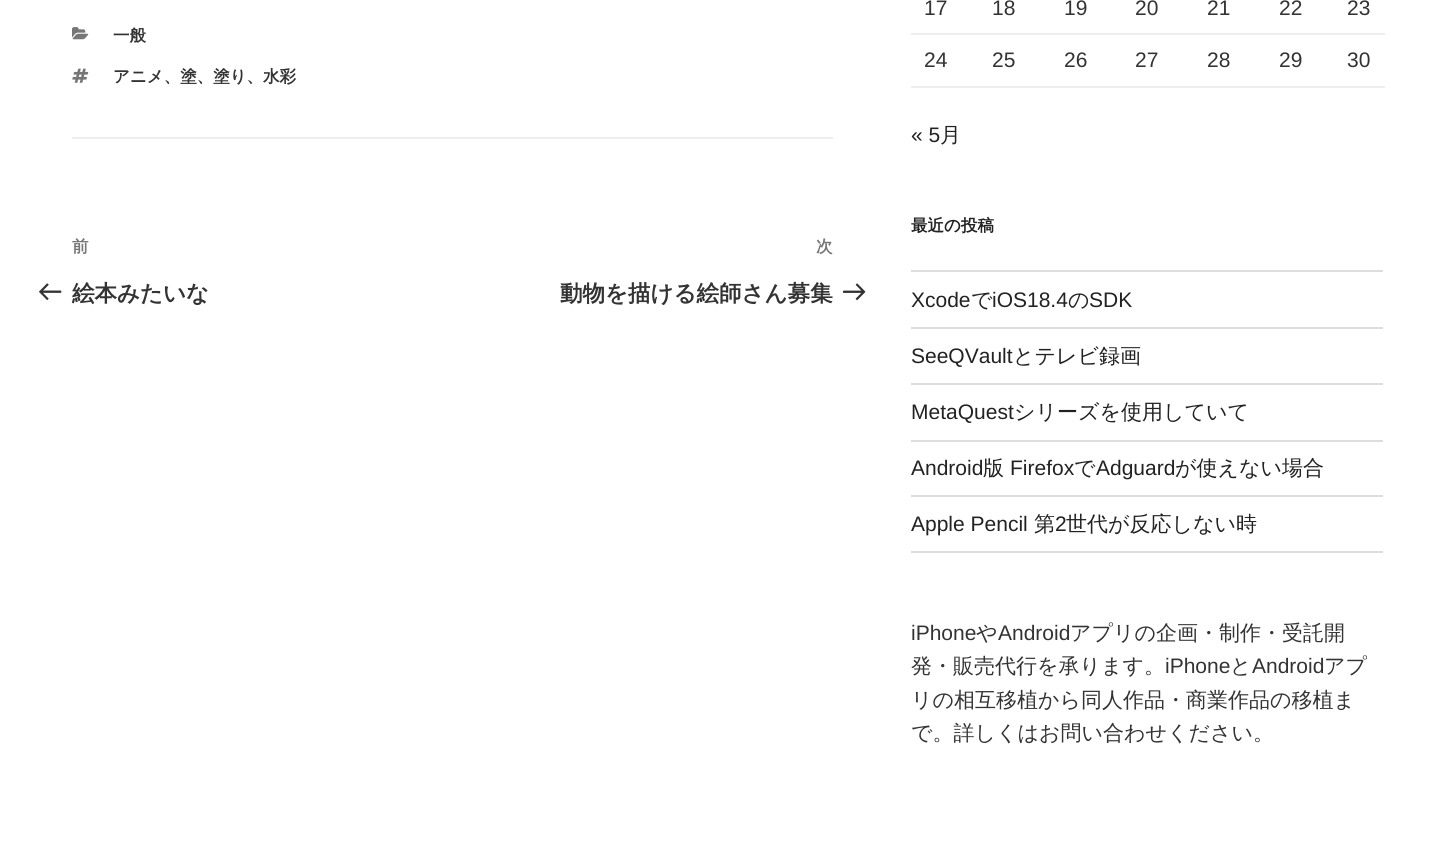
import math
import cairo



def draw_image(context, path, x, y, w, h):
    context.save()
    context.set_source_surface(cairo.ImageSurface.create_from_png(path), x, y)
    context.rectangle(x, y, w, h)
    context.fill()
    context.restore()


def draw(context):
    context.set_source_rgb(1, 1, 1)
    context.paint()
    context.set_source_rgb(238 / 255, 238 / 255, 238 / 255)
    context.rectangle(72, 137, 761, 2)
    context.fill()
    draw_image(context, "images/1.png", 72, 27, 17, 13)
    draw_image(context, "images/2.png", 72, 68, 17, 15)
    draw_image(context, "images/3.png", 39, 283, 23, 18)
    draw_image(context, "images/4.png", 843, 283, 23, 18)
    context.rectangle(911, 33, 474, 2)
    context.fill()
    context.rectangle(911, 86, 474, 2)
    context.fill()
    context.set_source_rgb(221 / 255, 221 / 255, 221 / 255)
    context.rectangle(911, 270, 472, 2)
    context.fill()
    context.rectangle(911, 327, 472, 2)
    context.fill()
    context.rectangle(911, 383, 472, 2)
    context.fill()
    context.rectangle(911, 440, 472, 2)
    context.fill()
    context.rectangle(911, 495, 472, 2)
    context.fill()
    context.rectangle(911, 551, 472, 2)
    context.fill()
    context.select_font_face("WenQuanYi Zen Hei", cairo.FontSlant.NORMAL, cairo.FontWeight.BOLD)
    context.set_font_size(16.5)
    context.set_source_rgb(51 / 255, 51 / 255, 51 / 255)
    context.move_to(113, 41)
    context.show_text("一般")
    context.move_to(113, 82)
    context.show_text("アニメ、塗、塗り、水彩")
    context.set_source_rgb(118 / 255, 118 / 255, 118 / 255)
    context.move_to(72, 252)
    context.show_text("前")
    context.set_font_size(22.5)
    context.set_source_rgb(51 / 255, 51 / 255, 51 / 255)
    context.move_to(72, 301)
    context.show_text("絵本みたいな")
    context.set_font_size(16.5)
    context.set_source_rgb(118 / 255, 118 / 255, 118 / 255)
    context.move_to(816, 252)
    context.show_text("次")
    context.set_font_size(22.5)
    context.set_source_rgb(51 / 255, 51 / 255, 51 / 255)
    context.move_to(560, 301)
    context.show_text("動物を描ける絵師さん募集")
    context.select_font_face("Liberation Sans")
    context.set_font_size(21)
    context.move_to(924, 15)
    context.show_text("17")
    context.move_to(992, 15)
    context.show_text("18")
    context.move_to(1064, 15)
    context.show_text("19")
    context.move_to(1135, 15)
    context.show_text("20")
    context.move_to(1207, 15)
    context.show_text("21")
    context.move_to(1279, 15)
    context.show_text("22")
    context.move_to(1347, 15)
    context.show_text("23")
    context.move_to(924, 67)
    context.show_text("24")
    context.move_to(992, 67)
    context.show_text("25")
    context.move_to(1064, 67)
    context.show_text("26")
    context.move_to(1135, 67)
    context.show_text("27")
    context.move_to(1207, 67)
    context.show_text("28")
    context.move_to(1279, 67)
    context.show_text("29")
    context.move_to(1347, 67)
    context.show_text("30")
    context.set_source_rgb(34 / 255, 34 / 255, 34 / 255)
    context.move_to(911, 142)
    context.show_text("« 5")
    context.select_font_face("WenQuanYi Zen Hei Medium")
    context.move_to(940, 142)
    context.show_text("月")
    context.select_font_face("WenQuanYi Zen Hei", cairo.FontSlant.NORMAL, cairo.FontWeight.BOLD)
    context.set_font_size(16.5)
    context.move_to(911, 231)
    context.show_text("最近の投稿")
    context.select_font_face("Liberation Sans")
    context.set_font_size(21)
    context.move_to(911, 307)
    context.show_text("Xcode")
    context.select_font_face("WenQuanYi Zen Hei Medium")
    context.move_to(971, 307)
    context.show_text("で")
    context.select_font_face("Liberation Sans")
    context.move_to(992, 307)
    context.show_text("iOS18.4")
    context.select_font_face("WenQuanYi Zen Hei Medium")
    context.move_to(1068, 307)
    context.show_text("の")
    context.select_font_face("Liberation Sans")
    context.move_to(1089, 307)
    context.show_text("SDK")
    context.move_to(911, 363)
    context.show_text("SeeQVault")
    context.select_font_face("WenQuanYi Zen Hei Medium")
    context.move_to(1013, 363)
    context.show_text("とテレビ録画")
    context.select_font_face("Liberation Sans")
    context.move_to(911, 419)
    context.show_text("MetaQuest")
    context.select_font_face("WenQuanYi Zen Hei Medium")
    context.move_to(1014, 419)
    context.show_text("シリーズを使用していて")
    context.select_font_face("Liberation Sans")
    context.move_to(911, 475)
    context.show_text("Android")
    context.select_font_face("WenQuanYi Zen Hei Medium")
    context.move_to(983, 475)
    context.show_text("版")
    context.select_font_face("Liberation Sans")
    context.move_to(1010, 475)
    context.show_text("Firefox")
    context.select_font_face("WenQuanYi Zen Hei Medium")
    context.move_to(1074, 475)
    context.show_text("で")
    context.select_font_face("Liberation Sans")
    context.move_to(1096, 475)
    context.show_text("Adguard")
    context.select_font_face("WenQuanYi Zen Hei Medium")
    context.move_to(1175, 475)
    context.show_text("が使えない場合")
    context.select_font_face("Liberation Sans")
    context.move_to(911, 531)
    context.show_text("Apple Pencil")
    context.select_font_face("WenQuanYi Zen Hei Medium")
    context.move_to(1034, 531)
    context.show_text("第")
    context.select_font_face("Liberation Sans")
    context.move_to(1055, 531)
    context.show_text("2")
    context.select_font_face("WenQuanYi Zen Hei Medium")
    context.move_to(1066, 531)
    context.show_text("世代が反応しない時")
    context.select_font_face("Liberation Sans")
    context.set_source_rgb(51 / 255, 51 / 255, 51 / 255)
    context.move_to(911, 640)
    context.show_text("iPhone")
    context.select_font_face("WenQuanYi Zen Hei Medium")
    context.move_to(976, 640)
    context.show_text("や")
    context.select_font_face("Liberation Sans")
    context.move_to(998, 640)
    context.show_text("Android")
    context.select_font_face("WenQuanYi Zen Hei Medium")
    context.move_to(1070, 640)
    context.show_text("アプリの企画・制作・受託開")
    context.move_to(911, 673)
    context.show_text("発・販売代行を承ります。")
    context.select_font_face("Liberation Sans")
    context.move_to(1165, 673)
    context.show_text("iPhone")
    context.select_font_face("WenQuanYi Zen Hei Medium")
    context.move_to(1230, 673)
    context.show_text("と")
    context.select_font_face("Liberation Sans")
    context.move_to(1252, 673)
    context.show_text("Android")
    context.select_font_face("WenQuanYi Zen Hei Medium")
    context.move_to(1324, 673)
    context.show_text("アプ")
    context.move_to(911, 707)
    context.show_text("リの相互移植から同人作品・商業作品の移植ま")
    context.move_to(911, 740)
    context.show_text("で。詳しくはお問い合わせください。")


surface = cairo.ImageSurface(cairo.Format.RGB24, 1454, 847)
context = cairo.Context(surface)
options = cairo.FontOptions()
options.set_hint_metrics(cairo.HintMetrics.OFF)
options.set_hint_style(cairo.HintStyle.NONE)
context.set_font_options(options)
context.set_miter_limit(4)
draw(context)
surface.write_to_png("out.png")
